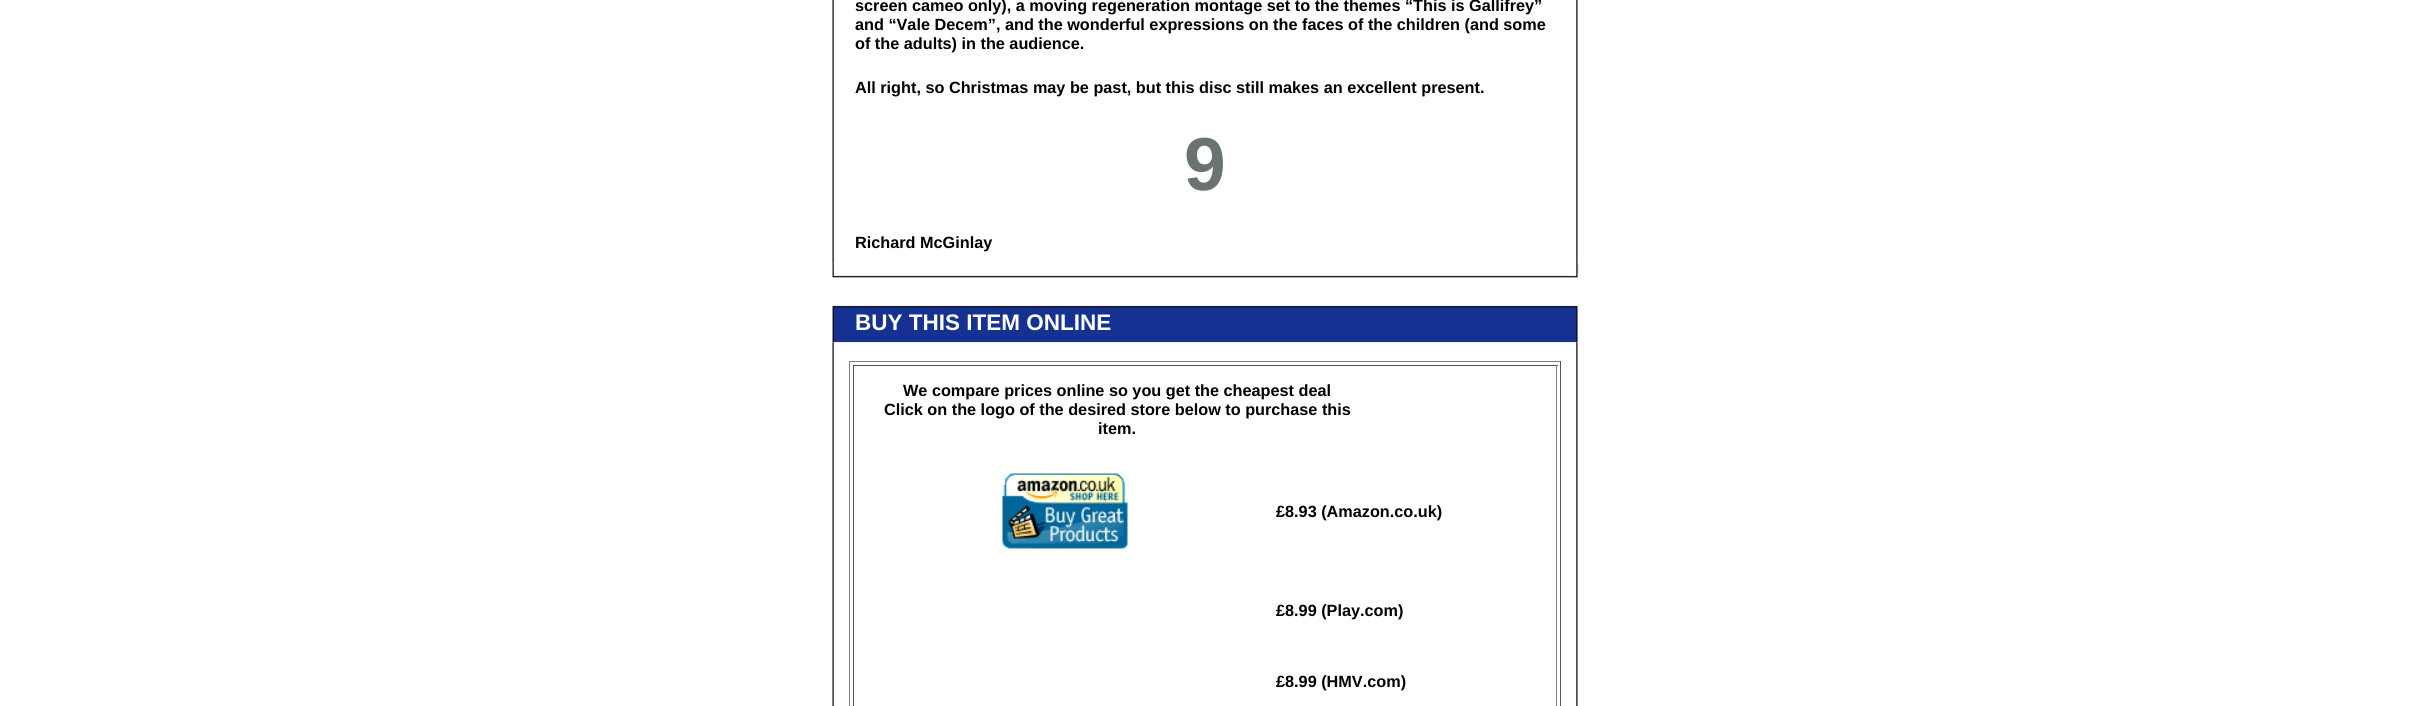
import math
import cairo



def draw_image(context, path, x, y, w, h):
    context.save()
    context.set_source_surface(cairo.ImageSurface.create_from_png(path), x, y)
    context.rectangle(x, y, w, h)
    context.fill()
    context.restore()


def draw(context):
    context.set_source_rgb(1, 1, 1)
    context.paint()
    draw_image(context, "images/1.png", 832, 0, 746, 264)
    draw_image(context, "images/2.png", 832, 263, 746, 1)
    draw_image(context, "images/3.png", 832, 263, 747, 15)
    draw_image(context, "images/4.png", 830, 305, 748, 38)
    draw_image(context, "images/5.png", 832, 342, 746, 364)
    context.set_source_rgb(128 / 255, 128 / 255, 128 / 255)
    context.rectangle(849, 361, 712, 1)
    context.fill()
    context.set_source_rgb(85 / 255, 85 / 255, 85 / 255)
    context.rectangle(1560, 361, 1, 345)
    context.fill()
    context.set_source_rgb(128 / 255, 128 / 255, 128 / 255)
    context.rectangle(849, 361, 1, 345)
    context.fill()
    context.set_source_rgb(85 / 255, 85 / 255, 85 / 255)
    context.rectangle(853, 365, 705, 1)
    context.fill()
    context.set_source_rgb(128 / 255, 128 / 255, 128 / 255)
    context.rectangle(1556, 365, 1, 341)
    context.fill()
    context.set_source_rgb(85 / 255, 85 / 255, 85 / 255)
    context.rectangle(853, 365, 1, 341)
    context.fill()
    draw_image(context, "images/6.png", 1002, 473, 126, 76)
    context.select_font_face("Liberation Sans", cairo.FontSlant.NORMAL, cairo.FontWeight.BOLD)
    context.set_font_size(16.25)
    context.set_source_rgb(0, 0, 0)
    context.move_to(855, 11)
    context.show_text("screen cameo only), a moving regeneration montage set to the themes “This is Gallifrey”")
    context.move_to(855, 30)
    context.show_text("and “Vale Decem”, and the wonderful expressions on the faces of the children (and some")
    context.move_to(855, 49)
    context.show_text("of the adults) in the audience.")
    context.move_to(855, 93)
    context.show_text("All right, so Christmas may be past, but this disc still makes an excellent present.")
    context.set_font_size(75)
    context.set_source_rgb(107 / 255, 114 / 255, 114 / 255)
    context.move_to(1184, 190)
    context.show_text("9")
    context.set_font_size(16.25)
    context.set_source_rgb(0, 0, 0)
    context.move_to(855, 248)
    context.show_text("Richard McGinlay")
    context.set_font_size(22.5)
    context.set_source_rgb(1, 1, 1)
    context.move_to(855, 330)
    context.show_text("BUY THIS ITEM ONLINE")
    context.set_font_size(16.25)
    context.set_source_rgb(0, 0, 0)
    context.move_to(903, 396)
    context.show_text("We compare prices online so you get the cheapest deal")
    context.move_to(884, 415)
    context.show_text("Click on the logo of the desired store below to purchase this")
    context.move_to(1098, 434)
    context.show_text("item.")
    context.move_to(1276, 517)
    context.show_text("£8.93 (Amazon.co.uk)")
    context.move_to(1276, 616)
    context.show_text("£8.99 (Play.com)")
    context.move_to(1276, 687)
    context.show_text("£8.99 (HMV.com)")


surface = cairo.ImageSurface(cairo.Format.RGB24, 2410, 706)
context = cairo.Context(surface)
options = cairo.FontOptions()
options.set_hint_metrics(cairo.HintMetrics.OFF)
options.set_hint_style(cairo.HintStyle.NONE)
context.set_font_options(options)
context.set_miter_limit(4)
draw(context)
surface.write_to_png("out.png")
